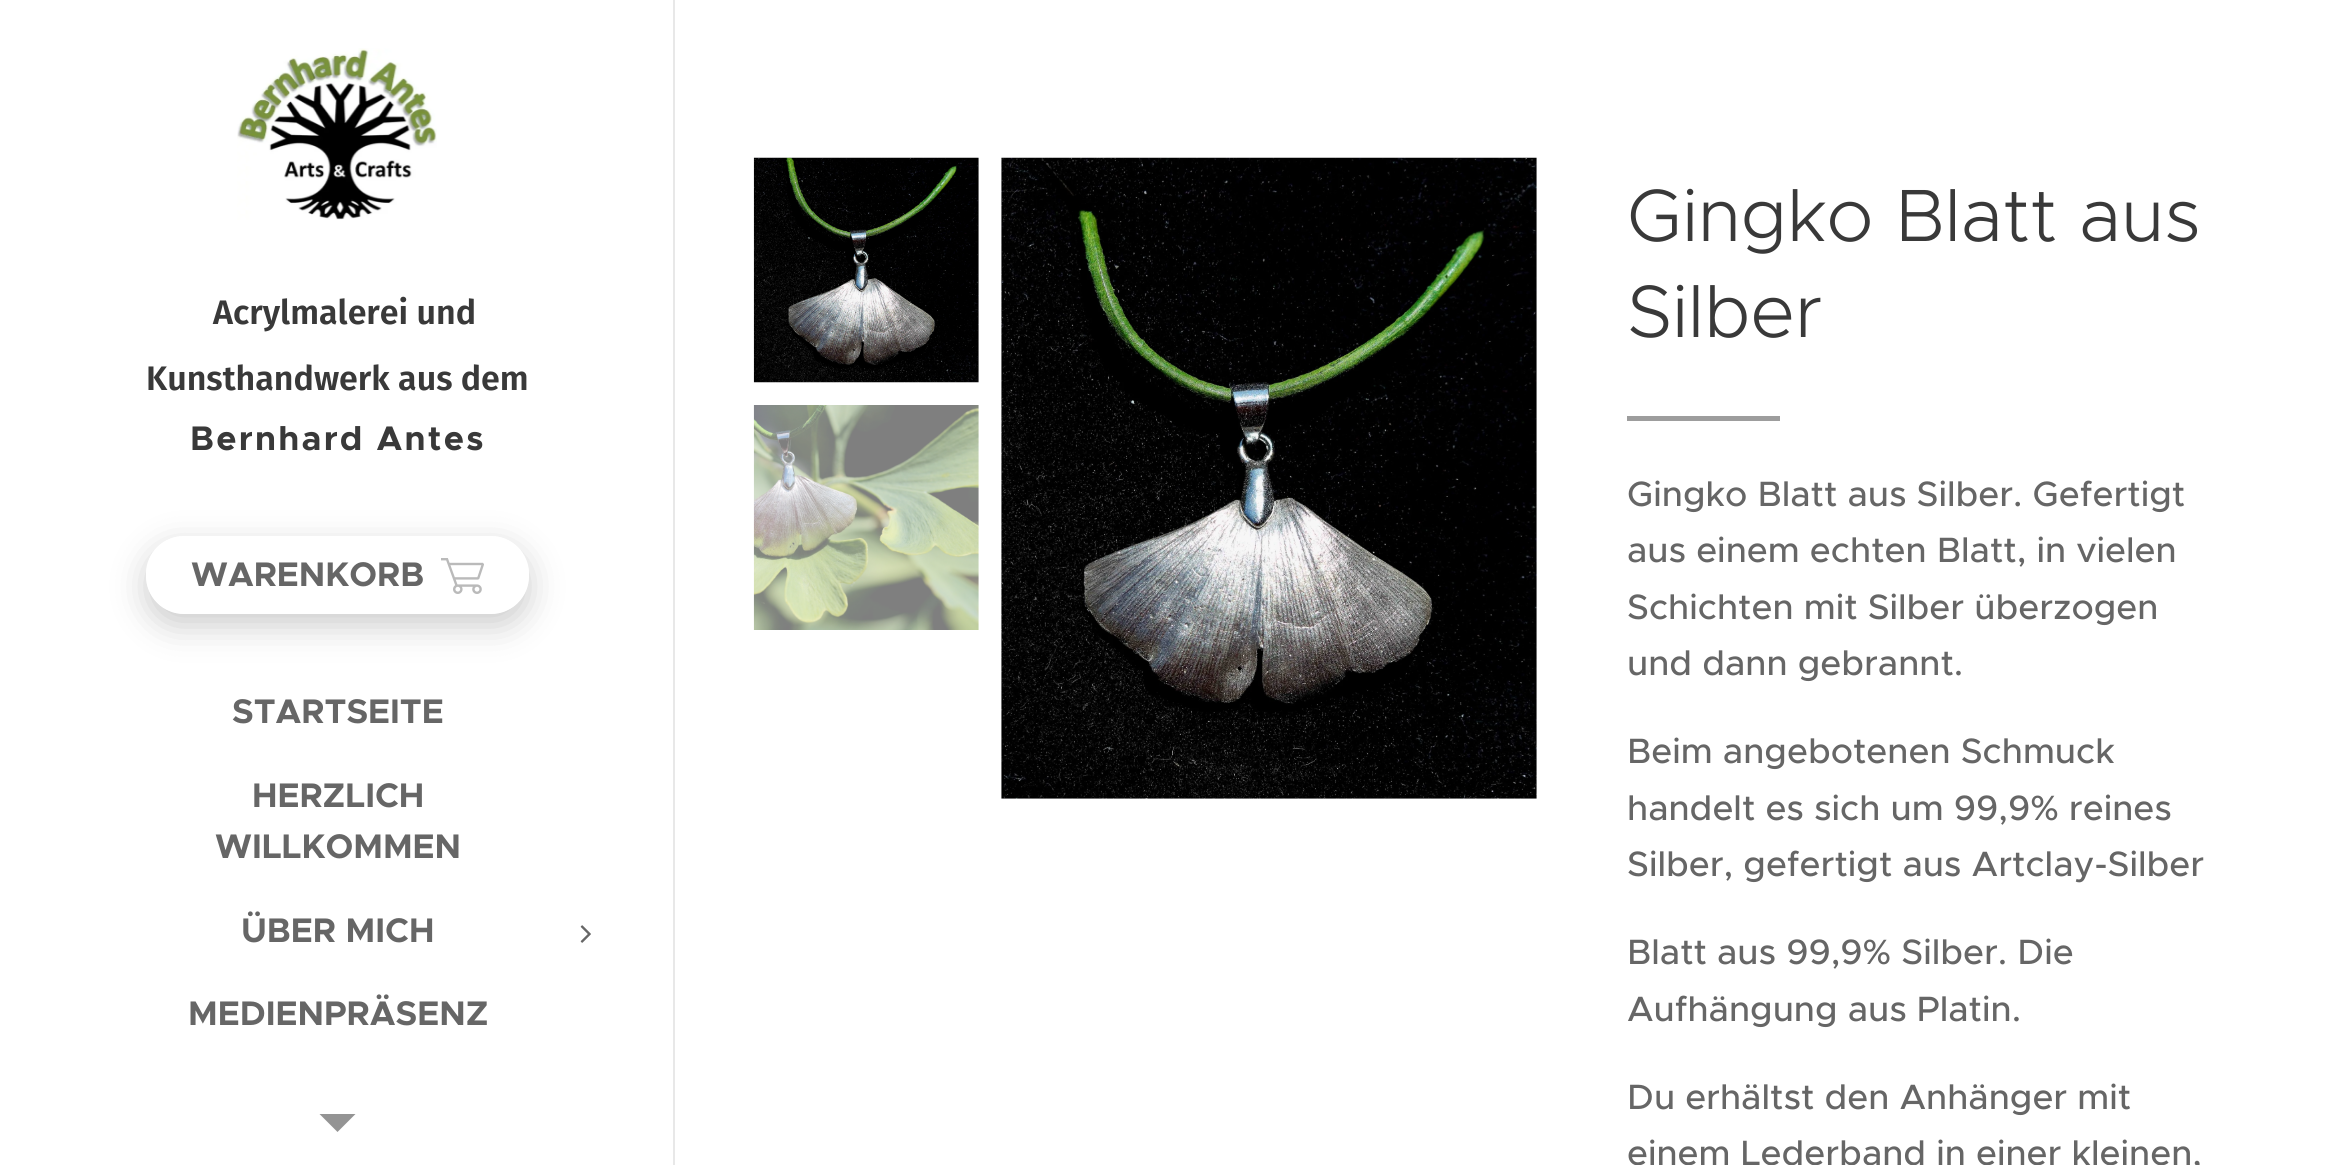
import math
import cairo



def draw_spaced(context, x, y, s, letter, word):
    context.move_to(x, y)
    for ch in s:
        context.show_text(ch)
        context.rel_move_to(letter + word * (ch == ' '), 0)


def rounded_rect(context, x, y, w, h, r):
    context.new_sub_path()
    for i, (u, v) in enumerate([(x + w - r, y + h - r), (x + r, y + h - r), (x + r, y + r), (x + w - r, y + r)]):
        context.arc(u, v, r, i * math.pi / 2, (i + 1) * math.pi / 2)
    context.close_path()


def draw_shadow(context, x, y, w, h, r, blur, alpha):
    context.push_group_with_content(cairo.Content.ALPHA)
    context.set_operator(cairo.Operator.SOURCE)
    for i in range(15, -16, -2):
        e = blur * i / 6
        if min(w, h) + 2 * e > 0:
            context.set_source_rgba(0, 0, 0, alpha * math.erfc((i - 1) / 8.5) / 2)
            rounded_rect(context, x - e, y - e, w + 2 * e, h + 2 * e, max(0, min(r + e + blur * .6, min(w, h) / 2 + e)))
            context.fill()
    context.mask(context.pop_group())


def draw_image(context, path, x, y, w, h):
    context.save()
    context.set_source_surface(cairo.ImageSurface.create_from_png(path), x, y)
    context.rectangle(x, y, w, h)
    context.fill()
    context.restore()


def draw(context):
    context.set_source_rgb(1, 1, 1)
    context.paint()
    draw_image(context, "images/1.png", 237, 48, 200, 172)
    context.save()
    context.set_fill_rule(cairo.FillRule.EVEN_ODD)
    context.new_path()
    context.move_to(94, 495)
    context.line_to(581, 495)
    context.line_to(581, 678)
    context.line_to(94, 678)
    context.close_path()
    context.move_to(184, 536)
    context.line_to(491, 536)
    context.curve_to(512, 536, 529, 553, 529, 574)
    context.line_to(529, 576)
    context.curve_to(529, 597, 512, 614, 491, 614)
    context.line_to(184, 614)
    context.curve_to(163, 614, 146, 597, 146, 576)
    context.line_to(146, 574)
    context.curve_to(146, 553, 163, 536, 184, 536)
    context.close_path()
    context.clip()
    context.set_source_rgb(0, 0, 0)
    draw_shadow(context, 146, 547, 383, 79, 38, 17, 0.2)
    context.restore()
    draw_image(context, "images/2.png", 441, 558, 43, 36)
    draw_image(context, "images/3.png", 580, 925, 11, 18)
    context.set_source_rgb(148 / 255, 148 / 255, 148 / 255)
    context.new_path()
    context.move_to(319.5, 1114)
    context.line_to(355.5, 1114)
    context.line_to(337.5, 1132)
    context.close_path()
    context.fill()
    context.set_source_rgb(232 / 255, 232 / 255, 232 / 255)
    context.rectangle(673, 0, 2, 1165)
    context.fill()
    draw_image(context, "images/4.png", 753, 157, 226, 226)
    draw_image(context, "images/5.png", 753, 405, 226, 225)
    draw_image(context, "images/6.png", 1001, 157, 536, 642)
    context.set_source_rgb(157 / 255, 157 / 255, 157 / 255)
    context.rectangle(1627, 416, 153, 5)
    context.fill()
    context.select_font_face("Fira Sans SemiBold")
    context.set_font_size(34)
    context.set_source_rgb(57 / 255, 57 / 255, 57 / 255)
    context.move_to(213, 324)
    context.show_text("Acrylmalerei und")
    context.move_to(146, 390)
    context.show_text("Kunsthandwerk aus dem")
    context.select_font_face("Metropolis", cairo.FontSlant.NORMAL, cairo.FontWeight.BOLD)
    context.set_font_size(34.25)
    draw_spaced(context, 190, 450, "Bernhard Antes", 2.25, 0)
    context.set_source_rgb(102 / 255, 102 / 255, 102 / 255)
    context.move_to(191, 586)
    context.show_text("WARENKORB")
    context.move_to(232, 723)
    context.show_text("STARTSEITE")
    context.move_to(252, 807)
    context.show_text("HERZLICH")
    context.move_to(215, 858)
    context.show_text("WILLKOMMEN")
    context.move_to(241, 942)
    context.show_text("ÜBER MICH")
    context.move_to(188, 1025)
    context.show_text("MEDIENPRÄSENZ")
    context.select_font_face("Metropolis Light")
    context.set_font_size(74.25)
    context.set_source_rgb(57 / 255, 57 / 255, 57 / 255)
    context.move_to(1627, 241)
    context.show_text("Gingko Blatt aus")
    context.move_to(1627, 337)
    context.show_text("Silber")
    context.select_font_face("Metropolis Medium")
    context.set_font_size(35.3)
    context.set_source_rgb(102 / 255, 102 / 255, 102 / 255)
    context.move_to(1627, 506)
    context.show_text("Gingko Blatt aus Silber. Gefertigt")
    context.move_to(1627, 562)
    context.show_text("aus einem echten Blatt, in vielen")
    context.move_to(1627, 619)
    context.show_text("Schichten mit Silber überzogen")
    context.move_to(1627, 675)
    context.show_text("und dann gebrannt.")
    context.move_to(1627, 763)
    context.show_text("Beim angebotenen Schmuck")
    context.move_to(1627, 820)
    context.show_text("handelt es sich um 99,9% reines")
    context.move_to(1627, 876)
    context.show_text("Silber, gefertigt aus Artclay-Silber")
    context.move_to(1627, 964)
    context.show_text("Blatt aus 99,9% Silber. Die")
    context.move_to(1627, 1021)
    context.show_text("Aufhängung aus Platin.")
    context.move_to(1627, 1109)
    context.show_text("Du erhältst den Anhänger mit")
    context.move_to(1627, 1165)
    context.show_text("einem Lederband in einer kleinen,")


surface = cairo.ImageSurface(cairo.Format.RGB24, 2336, 1165)
context = cairo.Context(surface)
options = cairo.FontOptions()
options.set_hint_metrics(cairo.HintMetrics.OFF)
options.set_hint_style(cairo.HintStyle.NONE)
context.set_font_options(options)
context.set_miter_limit(4)
draw(context)
surface.write_to_png("out.png")
